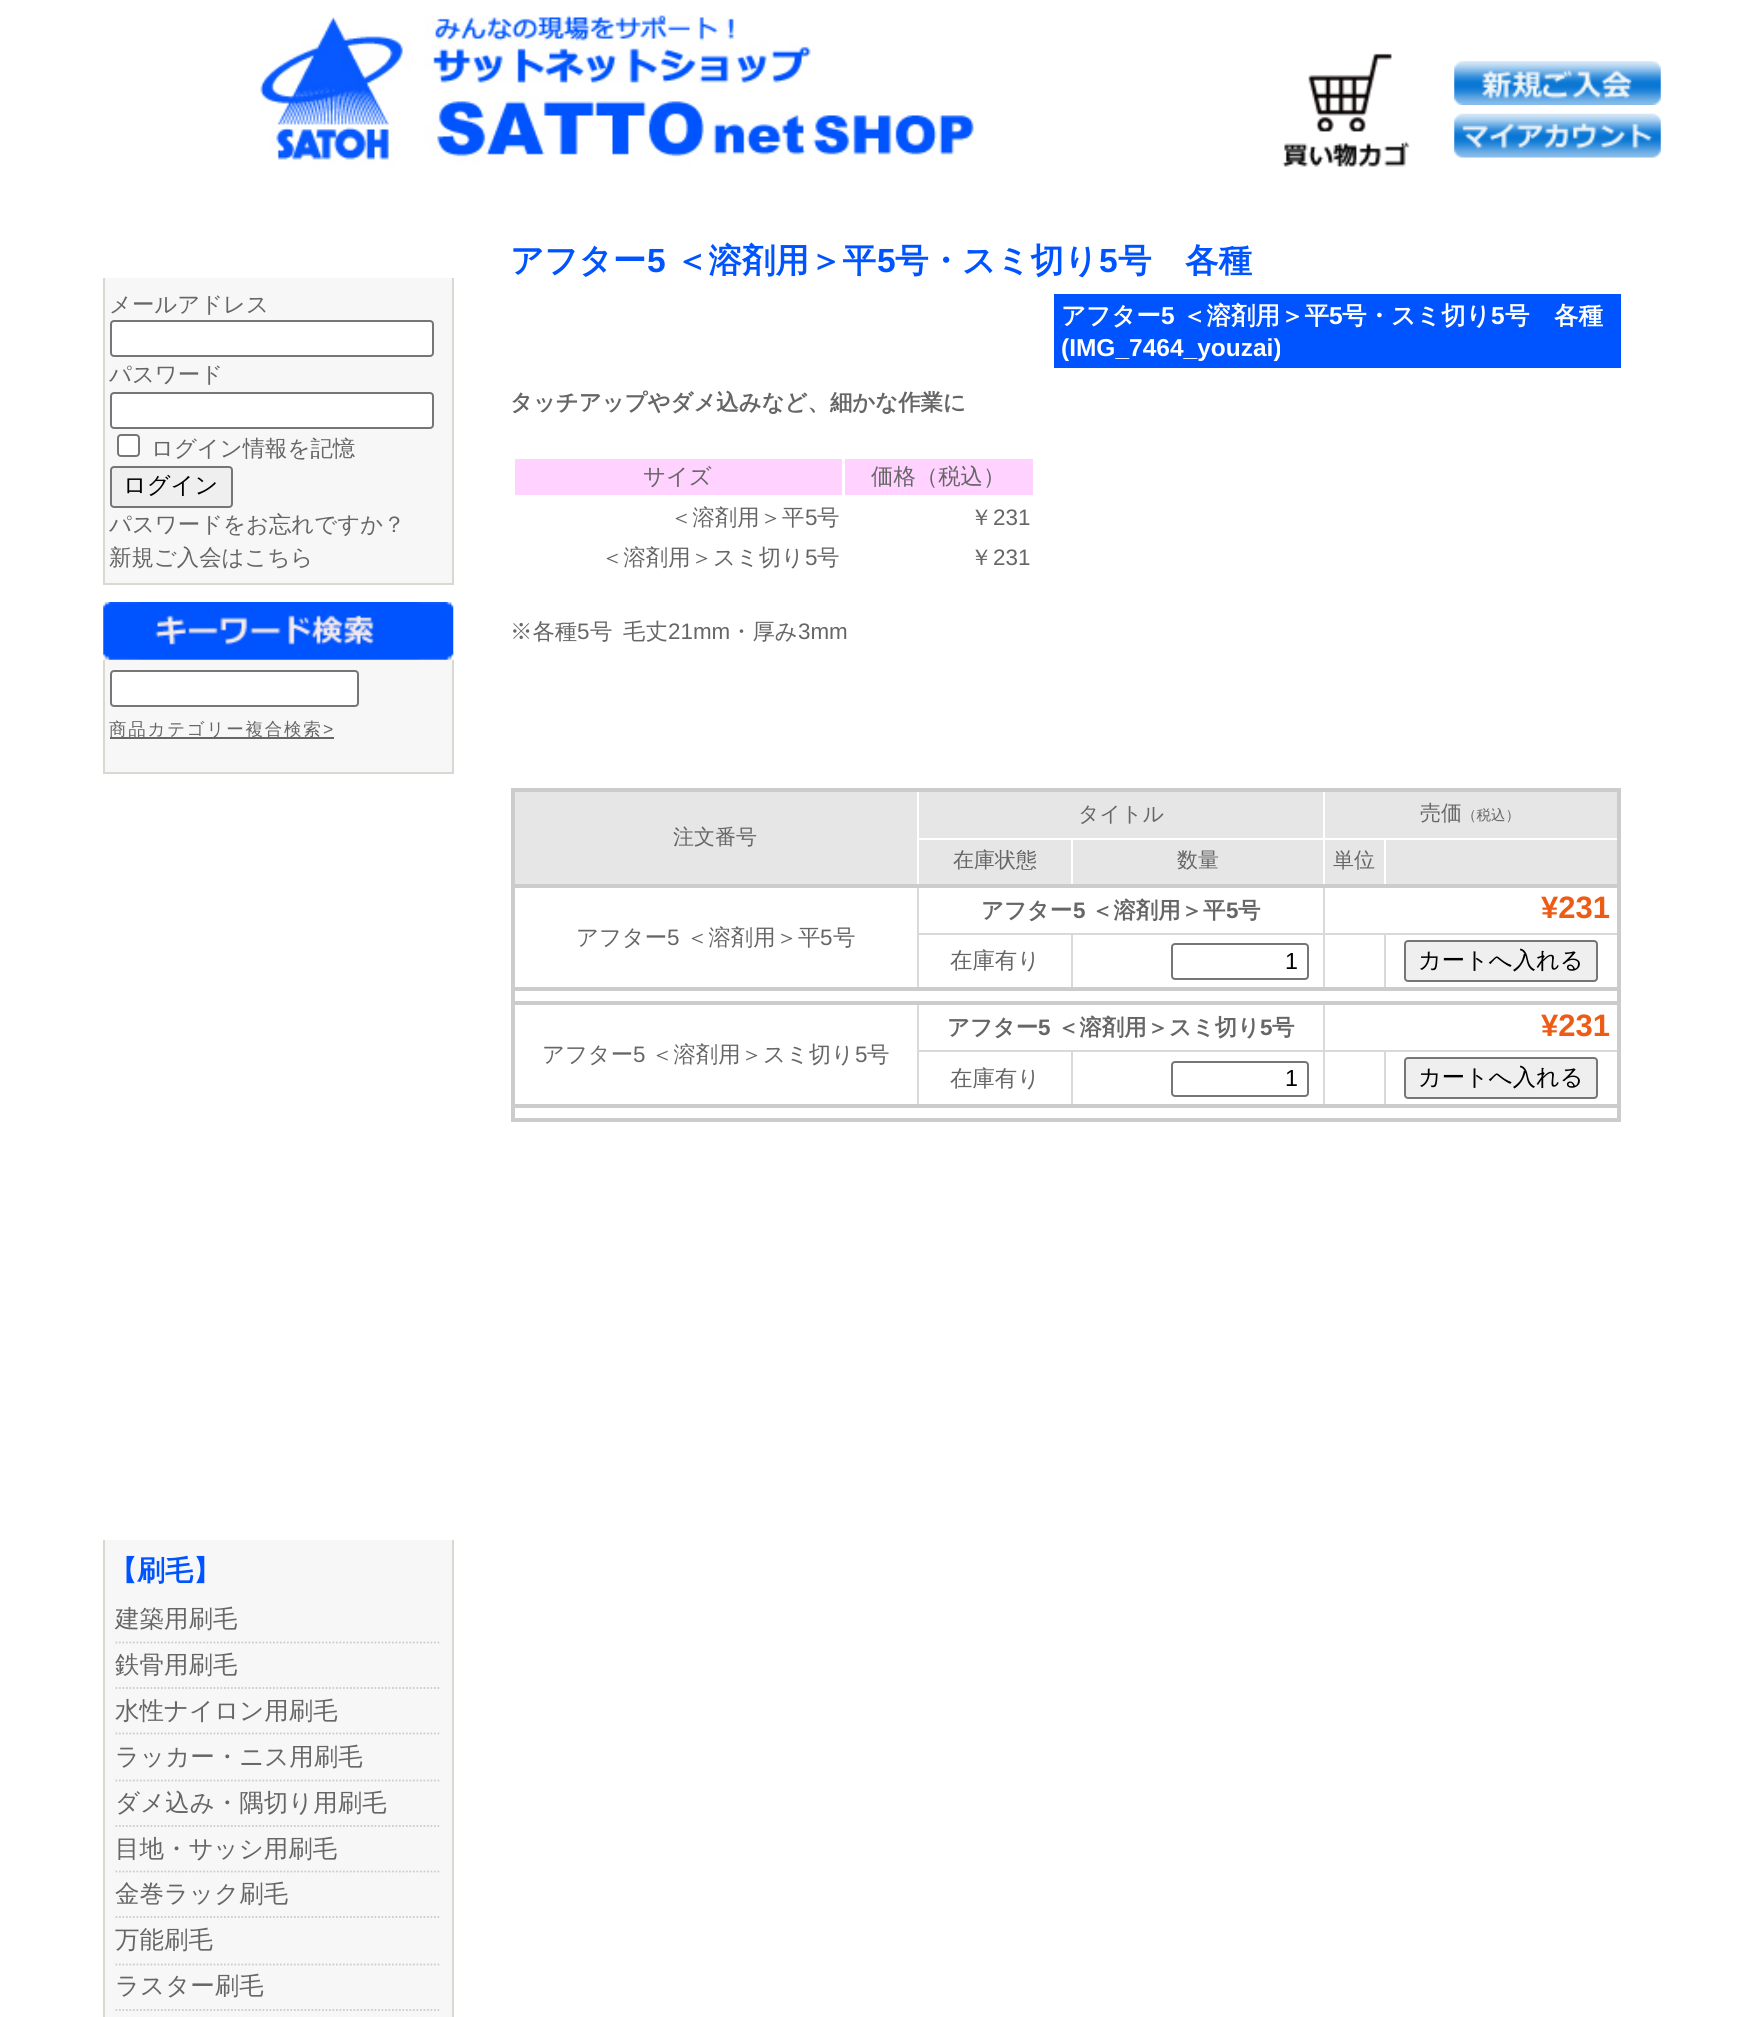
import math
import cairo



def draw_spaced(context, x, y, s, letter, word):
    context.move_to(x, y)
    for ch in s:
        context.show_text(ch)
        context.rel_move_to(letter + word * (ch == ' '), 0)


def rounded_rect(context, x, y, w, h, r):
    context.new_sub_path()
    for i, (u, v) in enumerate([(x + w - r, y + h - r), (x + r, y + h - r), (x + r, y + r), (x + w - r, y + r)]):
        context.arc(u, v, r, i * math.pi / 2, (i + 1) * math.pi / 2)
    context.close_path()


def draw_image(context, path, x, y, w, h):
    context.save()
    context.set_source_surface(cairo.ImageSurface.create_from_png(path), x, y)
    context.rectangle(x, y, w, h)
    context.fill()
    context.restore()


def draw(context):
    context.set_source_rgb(1, 1, 1)
    context.paint()
    draw_image(context, "images/1.png", 260, 15, 714, 151)
    draw_image(context, "images/2.png", 1282, 53, 128, 114)
    draw_image(context, "images/3.png", 1454, 61, 207, 44)
    draw_image(context, "images/4.png", 1454, 113, 207, 45)
    context.set_source_rgb(247 / 255, 247 / 255, 247 / 255)
    context.rectangle(105, 278, 347, 305)
    context.fill()
    context.set_source_rgb(218 / 255, 216 / 255, 209 / 255)
    context.rectangle(452, 278, 2, 307)
    context.fill()
    context.rectangle(103, 583, 350, 2)
    context.fill()
    context.rectangle(103, 278, 2, 307)
    context.fill()
    context.set_source_rgb(1, 1, 1)
    rounded_rect(context, 111, 321, 322, 35, 3)
    context.fill_preserve()
    context.set_source_rgb(118 / 255, 118 / 255, 118 / 255)
    context.stroke()
    context.set_source_rgb(1, 1, 1)
    rounded_rect(context, 111, 393, 322, 35, 3)
    context.fill_preserve()
    context.set_source_rgb(118 / 255, 118 / 255, 118 / 255)
    context.stroke()
    context.set_source_rgb(1, 1, 1)
    rounded_rect(context, 118, 435, 21, 21, 3)
    context.fill_preserve()
    context.set_source_rgb(118 / 255, 118 / 255, 118 / 255)
    context.stroke()
    context.set_source_rgb(239 / 255, 239 / 255, 239 / 255)
    rounded_rect(context, 111, 467, 121, 40, 3)
    context.fill_preserve()
    context.set_source_rgb(118 / 255, 118 / 255, 118 / 255)
    context.stroke()
    draw_image(context, "images/5.png", 103, 602, 351, 58)
    context.set_source_rgb(247 / 255, 247 / 255, 247 / 255)
    context.rectangle(105, 660, 347, 112)
    context.fill()
    context.set_source_rgb(218 / 255, 216 / 255, 209 / 255)
    context.rectangle(452, 660, 2, 114)
    context.fill()
    context.rectangle(103, 772, 350, 2)
    context.fill()
    context.rectangle(103, 660, 2, 114)
    context.fill()
    context.set_source_rgb(1, 1, 1)
    rounded_rect(context, 111, 671, 247, 35, 3)
    context.fill_preserve()
    context.set_source_rgb(118 / 255, 118 / 255, 118 / 255)
    context.stroke()
    context.set_source_rgb(102 / 255, 102 / 255, 102 / 255)
    context.rectangle(110, 737, 224, 2)
    context.fill()
    context.set_source_rgb(247 / 255, 247 / 255, 247 / 255)
    context.rectangle(105, 1540, 347, 477)
    context.fill()
    context.set_source_rgb(218 / 255, 216 / 255, 209 / 255)
    context.rectangle(452, 1540, 2, 477)
    context.fill()
    context.rectangle(103, 1540, 2, 477)
    context.fill()
    context.new_path()
    context.move_to(115.5, 1642.5)
    context.line_to(441, 1642.5)
    context.set_source_rgb(204 / 255, 204 / 255, 204 / 255)
    context.set_line_width(1.8)
    context.set_dash([1.75, 1.75])
    context.stroke()
    context.new_path()
    context.move_to(115.5, 1688)
    context.line_to(441, 1688)
    context.stroke()
    context.new_path()
    context.move_to(115.5, 1733.5)
    context.line_to(441, 1733.5)
    context.stroke()
    context.new_path()
    context.move_to(115.5, 1780.5)
    context.line_to(441, 1780.5)
    context.stroke()
    context.new_path()
    context.move_to(115.5, 1826)
    context.line_to(441, 1826)
    context.stroke()
    context.new_path()
    context.move_to(115.5, 1871.5)
    context.line_to(441, 1871.5)
    context.stroke()
    context.new_path()
    context.move_to(115.5, 1917)
    context.line_to(441, 1917)
    context.stroke()
    context.new_path()
    context.move_to(115.5, 1964.5)
    context.line_to(441, 1964.5)
    context.stroke()
    context.new_path()
    context.move_to(115.5, 2010)
    context.line_to(441, 2010)
    context.stroke()
    context.set_source_rgb(0, 84 / 255, 1)
    context.rectangle(1054, 294, 567, 74)
    context.fill()
    context.set_source_rgb(1, 210 / 255, 1)
    context.rectangle(515, 459, 327, 36)
    context.fill()
    context.rectangle(845, 459, 188, 36)
    context.fill()
    context.set_source_rgb(204 / 255, 204 / 255, 204 / 255)
    context.rectangle(511, 788, 1110, 4)
    context.fill()
    context.set_source_rgb(217 / 255, 217 / 255, 217 / 255)
    context.rectangle(1323, 933, 2, 58)
    context.fill()
    context.rectangle(1384, 933, 2, 58)
    context.fill()
    context.rectangle(1323, 933, 296, 2)
    context.fill()
    context.rectangle(1323, 1050, 2, 58)
    context.fill()
    context.rectangle(1384, 1050, 2, 58)
    context.fill()
    context.rectangle(1323, 1050, 296, 2)
    context.fill()
    context.set_source_rgb(204 / 255, 204 / 255, 204 / 255)
    context.rectangle(1617, 788, 4, 334)
    context.fill()
    context.rectangle(511, 1118, 1110, 4)
    context.fill()
    context.rectangle(511, 788, 4, 334)
    context.fill()
    context.set_source_rgb(230 / 255, 230 / 255, 230 / 255)
    context.rectangle(919, 792, 404, 46)
    context.fill()
    context.rectangle(1325, 792, 292, 46)
    context.fill()
    context.rectangle(515, 792, 402, 92)
    context.fill()
    context.set_source_rgb(217 / 255, 217 / 255, 217 / 255)
    context.rectangle(1323, 884, 2, 51)
    context.fill()
    context.rectangle(1071, 933, 2, 58)
    context.fill()
    context.rectangle(917, 933, 408, 2)
    context.fill()
    context.rectangle(917, 884, 2, 107)
    context.fill()
    context.set_source_rgb(1, 1, 1)
    context.rectangle(917, 884, 2, 2)
    context.fill()
    context.set_source_rgb(230 / 255, 230 / 255, 230 / 255)
    context.rectangle(1386, 840, 231, 44)
    context.fill()
    context.set_source_rgb(1, 1, 1)
    context.rectangle(1323, 884, 2, 2)
    context.fill()
    context.set_source_rgb(204 / 255, 204 / 255, 204 / 255)
    context.rectangle(511, 884, 1110, 4)
    context.fill()
    context.set_source_rgb(230 / 255, 230 / 255, 230 / 255)
    context.rectangle(919, 840, 152, 44)
    context.fill()
    context.rectangle(1073, 840, 250, 44)
    context.fill()
    context.rectangle(1325, 840, 59, 44)
    context.fill()
    rounded_rect(context, 1172, 944, 136, 35, 3)
    context.set_source_rgb(118 / 255, 118 / 255, 118 / 255)
    context.set_line_width(2)
    context.set_dash([])
    context.stroke()
    context.set_source_rgb(204 / 255, 204 / 255, 204 / 255)
    context.rectangle(511, 987, 1110, 4)
    context.fill()
    context.set_source_rgb(239 / 255, 239 / 255, 239 / 255)
    rounded_rect(context, 1405, 941, 192, 40, 3)
    context.fill_preserve()
    context.set_source_rgb(118 / 255, 118 / 255, 118 / 255)
    context.stroke()
    context.set_source_rgb(217 / 255, 217 / 255, 217 / 255)
    context.rectangle(1323, 1003, 2, 49)
    context.fill()
    context.rectangle(1071, 1050, 2, 58)
    context.fill()
    context.rectangle(917, 1050, 408, 2)
    context.fill()
    context.rectangle(917, 1003, 2, 105)
    context.fill()
    context.set_source_rgb(204 / 255, 204 / 255, 204 / 255)
    context.rectangle(511, 1001, 1110, 4)
    context.fill()
    rounded_rect(context, 1172, 1062, 136, 34, 3)
    context.set_source_rgb(118 / 255, 118 / 255, 118 / 255)
    context.stroke()
    context.set_source_rgb(204 / 255, 204 / 255, 204 / 255)
    context.rectangle(511, 1104, 1110, 4)
    context.fill()
    context.set_source_rgb(239 / 255, 239 / 255, 239 / 255)
    rounded_rect(context, 1405, 1058, 192, 40, 3)
    context.fill_preserve()
    context.set_source_rgb(118 / 255, 118 / 255, 118 / 255)
    context.stroke()
    context.select_font_face("WenQuanYi Zen Hei Medium")
    context.set_font_size(22.4)
    context.set_source_rgb(102 / 255, 102 / 255, 102 / 255)
    context.move_to(109, 312)
    context.show_text("メールアドレス")
    context.move_to(109, 382)
    context.show_text("パスワード")
    context.move_to(151, 456)
    context.show_text("ログイン情報を記憶")
    context.set_font_size(23.25)
    context.set_source_rgb(0, 0, 0)
    context.move_to(123, 493)
    context.show_text("ログイン")
    context.set_font_size(22.4)
    context.set_source_rgb(102 / 255, 102 / 255, 102 / 255)
    context.move_to(109, 532)
    context.show_text("パスワードをお忘れですか？")
    context.move_to(109, 565)
    context.show_text("新規ご入会はこちら")
    context.set_font_size(17.5)
    draw_spaced(context, 109, 735, "商品カテゴリー複合検索", 1.75, 0)
    context.select_font_face("Liberation Sans")
    draw_spaced(context, 323, 735, ">", 1.75, 0)
    context.select_font_face("WenQuanYi Zen Hei", cairo.FontSlant.NORMAL, cairo.FontWeight.BOLD)
    context.set_font_size(28)
    context.set_source_rgb(0, 84 / 255, 1)
    context.move_to(109, 1580)
    context.show_text("【刷毛】")
    context.select_font_face("WenQuanYi Zen Hei Medium")
    context.set_font_size(24.5)
    context.set_source_rgb(102 / 255, 102 / 255, 102 / 255)
    context.move_to(115, 1627)
    context.show_text("建築用刷毛")
    context.move_to(115, 1673)
    context.show_text("鉄骨用刷毛")
    context.move_to(115, 1719)
    context.show_text("水性ナイロン用刷毛")
    context.move_to(115, 1765)
    context.show_text("ラッカー・ニス用刷毛")
    context.move_to(115, 1811)
    context.show_text("ダメ込み・隅切り用刷毛")
    context.move_to(115, 1857)
    context.show_text("目地・サッシ用刷毛")
    context.move_to(115, 1902)
    context.show_text("金巻ラック刷毛")
    context.move_to(115, 1948)
    context.show_text("万能刷毛")
    context.move_to(115, 1994)
    context.show_text("ラスター刷毛")
    context.select_font_face("WenQuanYi Zen Hei", cairo.FontSlant.NORMAL, cairo.FontWeight.BOLD)
    context.set_font_size(33.5)
    context.set_source_rgb(0, 84 / 255, 1)
    context.move_to(510, 272)
    context.show_text("アフター")
    context.select_font_face("Liberation Sans", cairo.FontSlant.NORMAL, cairo.FontWeight.BOLD)
    context.move_to(647, 272)
    context.show_text("5")
    context.select_font_face("WenQuanYi Zen Hei", cairo.FontSlant.NORMAL, cairo.FontWeight.BOLD)
    context.move_to(675, 272)
    context.show_text("＜溶剤用＞平")
    context.select_font_face("Liberation Sans", cairo.FontSlant.NORMAL, cairo.FontWeight.BOLD)
    context.move_to(877, 272)
    context.show_text("5")
    context.select_font_face("WenQuanYi Zen Hei", cairo.FontSlant.NORMAL, cairo.FontWeight.BOLD)
    context.move_to(895, 272)
    context.show_text("号・スミ切り")
    context.select_font_face("Liberation Sans", cairo.FontSlant.NORMAL, cairo.FontWeight.BOLD)
    context.move_to(1099, 272)
    context.show_text("5")
    context.select_font_face("WenQuanYi Zen Hei", cairo.FontSlant.NORMAL, cairo.FontWeight.BOLD)
    context.move_to(1118, 272)
    context.show_text("号　各種")
    context.set_font_size(24.5)
    context.set_source_rgb(1, 1, 1)
    context.move_to(1061, 324)
    context.show_text("アフター")
    context.select_font_face("Liberation Sans", cairo.FontSlant.NORMAL, cairo.FontWeight.BOLD)
    context.move_to(1161, 324)
    context.show_text("5")
    context.select_font_face("WenQuanYi Zen Hei", cairo.FontSlant.NORMAL, cairo.FontWeight.BOLD)
    context.move_to(1182, 324)
    context.show_text("＜溶剤用＞平")
    context.select_font_face("Liberation Sans", cairo.FontSlant.NORMAL, cairo.FontWeight.BOLD)
    context.move_to(1329, 324)
    context.show_text("5")
    context.select_font_face("WenQuanYi Zen Hei", cairo.FontSlant.NORMAL, cairo.FontWeight.BOLD)
    context.move_to(1342, 324)
    context.show_text("号・スミ切り")
    context.select_font_face("Liberation Sans", cairo.FontSlant.NORMAL, cairo.FontWeight.BOLD)
    context.move_to(1491, 324)
    context.show_text("5")
    context.select_font_face("WenQuanYi Zen Hei", cairo.FontSlant.NORMAL, cairo.FontWeight.BOLD)
    context.move_to(1505, 324)
    context.show_text("号　各種")
    context.select_font_face("Liberation Sans", cairo.FontSlant.NORMAL, cairo.FontWeight.BOLD)
    context.move_to(1061, 356)
    context.show_text("(IMG_7464_youzai)")
    context.select_font_face("WenQuanYi Zen Hei", cairo.FontSlant.NORMAL, cairo.FontWeight.BOLD)
    context.set_font_size(22.4)
    context.set_source_rgb(102 / 255, 102 / 255, 102 / 255)
    context.move_to(510, 410)
    context.show_text("タッチアップやダメ込みなど、細かな作業に")
    context.select_font_face("WenQuanYi Zen Hei Medium")
    context.move_to(643, 484)
    context.show_text("サイズ")
    context.move_to(871, 484)
    context.show_text("価格（税込）")
    context.move_to(670, 525)
    context.show_text("＜溶剤用＞平")
    context.select_font_face("Liberation Sans")
    context.move_to(805, 525)
    context.show_text("5")
    context.select_font_face("WenQuanYi Zen Hei Medium")
    context.move_to(817, 525)
    context.show_text("号")
    context.move_to(970, 525)
    context.show_text("￥")
    context.select_font_face("Liberation Sans")
    context.move_to(993, 525)
    context.show_text("231")
    context.select_font_face("WenQuanYi Zen Hei Medium")
    context.move_to(601, 565)
    context.show_text("＜溶剤用＞スミ切り")
    context.select_font_face("Liberation Sans")
    context.move_to(805, 565)
    context.show_text("5")
    context.select_font_face("WenQuanYi Zen Hei Medium")
    context.move_to(817, 565)
    context.show_text("号")
    context.move_to(970, 565)
    context.show_text("￥")
    context.select_font_face("Liberation Sans")
    context.move_to(993, 565)
    context.show_text("231")
    context.select_font_face("WenQuanYi Zen Hei Medium")
    context.move_to(510, 639)
    context.show_text("※各種")
    context.select_font_face("Liberation Sans")
    context.move_to(577, 639)
    context.show_text("5")
    context.select_font_face("WenQuanYi Zen Hei Medium")
    context.move_to(590, 639)
    context.show_text("号")
    context.move_to(623, 639)
    context.show_text("毛丈")
    context.select_font_face("Liberation Sans")
    context.move_to(668, 639)
    context.show_text("21mm")
    context.select_font_face("WenQuanYi Zen Hei Medium")
    context.move_to(730, 639)
    context.show_text("・厚み")
    context.select_font_face("Liberation Sans")
    context.move_to(798, 639)
    context.show_text("3mm")
    context.select_font_face("WenQuanYi Zen Hei Medium")
    context.set_font_size(21)
    context.move_to(1078, 821)
    context.show_text("タイトル")
    context.move_to(1420, 820)
    context.show_text("売価")
    context.set_font_size(14.5)
    context.move_to(1462, 820)
    context.show_text("（税込）")
    context.set_font_size(21)
    context.move_to(673, 844)
    context.show_text("注文番号")
    context.move_to(953, 867)
    context.show_text("在庫状態")
    context.move_to(1177, 867)
    context.show_text("数量")
    context.move_to(1333, 867)
    context.show_text("単位")
    context.select_font_face("WenQuanYi Zen Hei", cairo.FontSlant.NORMAL, cairo.FontWeight.BOLD)
    context.set_font_size(22.4)
    context.move_to(981, 918)
    context.show_text("アフター")
    context.select_font_face("Liberation Sans", cairo.FontSlant.NORMAL, cairo.FontWeight.BOLD)
    context.move_to(1073, 918)
    context.show_text("5")
    context.select_font_face("WenQuanYi Zen Hei", cairo.FontSlant.NORMAL, cairo.FontWeight.BOLD)
    context.move_to(1091, 918)
    context.show_text("＜溶剤用＞平")
    context.select_font_face("Liberation Sans", cairo.FontSlant.NORMAL, cairo.FontWeight.BOLD)
    context.move_to(1226, 918)
    context.show_text("5")
    context.select_font_face("WenQuanYi Zen Hei", cairo.FontSlant.NORMAL, cairo.FontWeight.BOLD)
    context.move_to(1238, 918)
    context.show_text("号")
    context.select_font_face("Liberation Sans", cairo.FontSlant.NORMAL, cairo.FontWeight.BOLD)
    context.set_font_size(31)
    context.set_source_rgb(237 / 255, 91 / 255, 20 / 255)
    context.move_to(1541, 918)
    context.show_text("¥231")
    context.select_font_face("WenQuanYi Zen Hei Medium")
    context.set_font_size(22.4)
    context.set_source_rgb(102 / 255, 102 / 255, 102 / 255)
    context.move_to(576, 945)
    context.show_text("アフター")
    context.select_font_face("Liberation Sans")
    context.move_to(667, 945)
    context.show_text("5")
    context.select_font_face("WenQuanYi Zen Hei Medium")
    context.move_to(686, 945)
    context.show_text("＜溶剤用＞平")
    context.select_font_face("Liberation Sans")
    context.move_to(820, 945)
    context.show_text("5")
    context.select_font_face("WenQuanYi Zen Hei Medium")
    context.move_to(833, 945)
    context.show_text("号")
    context.move_to(950, 968)
    context.show_text("在庫有り")
    context.select_font_face("Liberation Sans")
    context.set_font_size(23.25)
    context.set_source_rgb(0, 0, 0)
    context.move_to(1285, 969)
    context.show_text("1")
    context.select_font_face("WenQuanYi Zen Hei Medium")
    context.move_to(1418, 968)
    context.show_text("カートへ入れる")
    context.select_font_face("WenQuanYi Zen Hei", cairo.FontSlant.NORMAL, cairo.FontWeight.BOLD)
    context.set_font_size(22.4)
    context.set_source_rgb(102 / 255, 102 / 255, 102 / 255)
    context.move_to(947, 1035)
    context.show_text("アフター")
    context.select_font_face("Liberation Sans", cairo.FontSlant.NORMAL, cairo.FontWeight.BOLD)
    context.move_to(1038, 1035)
    context.show_text("5")
    context.select_font_face("WenQuanYi Zen Hei", cairo.FontSlant.NORMAL, cairo.FontWeight.BOLD)
    context.move_to(1057, 1035)
    context.show_text("＜溶剤用＞スミ切り")
    context.select_font_face("Liberation Sans", cairo.FontSlant.NORMAL, cairo.FontWeight.BOLD)
    context.move_to(1260, 1035)
    context.show_text("5")
    context.select_font_face("WenQuanYi Zen Hei", cairo.FontSlant.NORMAL, cairo.FontWeight.BOLD)
    context.move_to(1272, 1035)
    context.show_text("号")
    context.select_font_face("Liberation Sans", cairo.FontSlant.NORMAL, cairo.FontWeight.BOLD)
    context.set_font_size(31)
    context.set_source_rgb(237 / 255, 91 / 255, 20 / 255)
    context.move_to(1541, 1036)
    context.show_text("¥231")
    context.select_font_face("WenQuanYi Zen Hei Medium")
    context.set_font_size(22.4)
    context.set_source_rgb(102 / 255, 102 / 255, 102 / 255)
    context.move_to(542, 1062)
    context.show_text("アフター")
    context.select_font_face("Liberation Sans")
    context.move_to(633, 1062)
    context.show_text("5")
    context.select_font_face("WenQuanYi Zen Hei Medium")
    context.move_to(651, 1062)
    context.show_text("＜溶剤用＞スミ切り")
    context.select_font_face("Liberation Sans")
    context.move_to(855, 1062)
    context.show_text("5")
    context.select_font_face("WenQuanYi Zen Hei Medium")
    context.move_to(867, 1062)
    context.show_text("号")
    context.move_to(950, 1086)
    context.show_text("在庫有り")
    context.select_font_face("Liberation Sans")
    context.set_font_size(23.25)
    context.set_source_rgb(0, 0, 0)
    context.move_to(1285, 1086)
    context.show_text("1")
    context.select_font_face("WenQuanYi Zen Hei Medium")
    context.move_to(1418, 1085)
    context.show_text("カートへ入れる")


surface = cairo.ImageSurface(cairo.Format.RGB24, 1744, 2017)
context = cairo.Context(surface)
options = cairo.FontOptions()
options.set_hint_metrics(cairo.HintMetrics.OFF)
options.set_hint_style(cairo.HintStyle.NONE)
context.set_font_options(options)
context.set_miter_limit(4)
draw(context)
surface.write_to_png("out.png")
